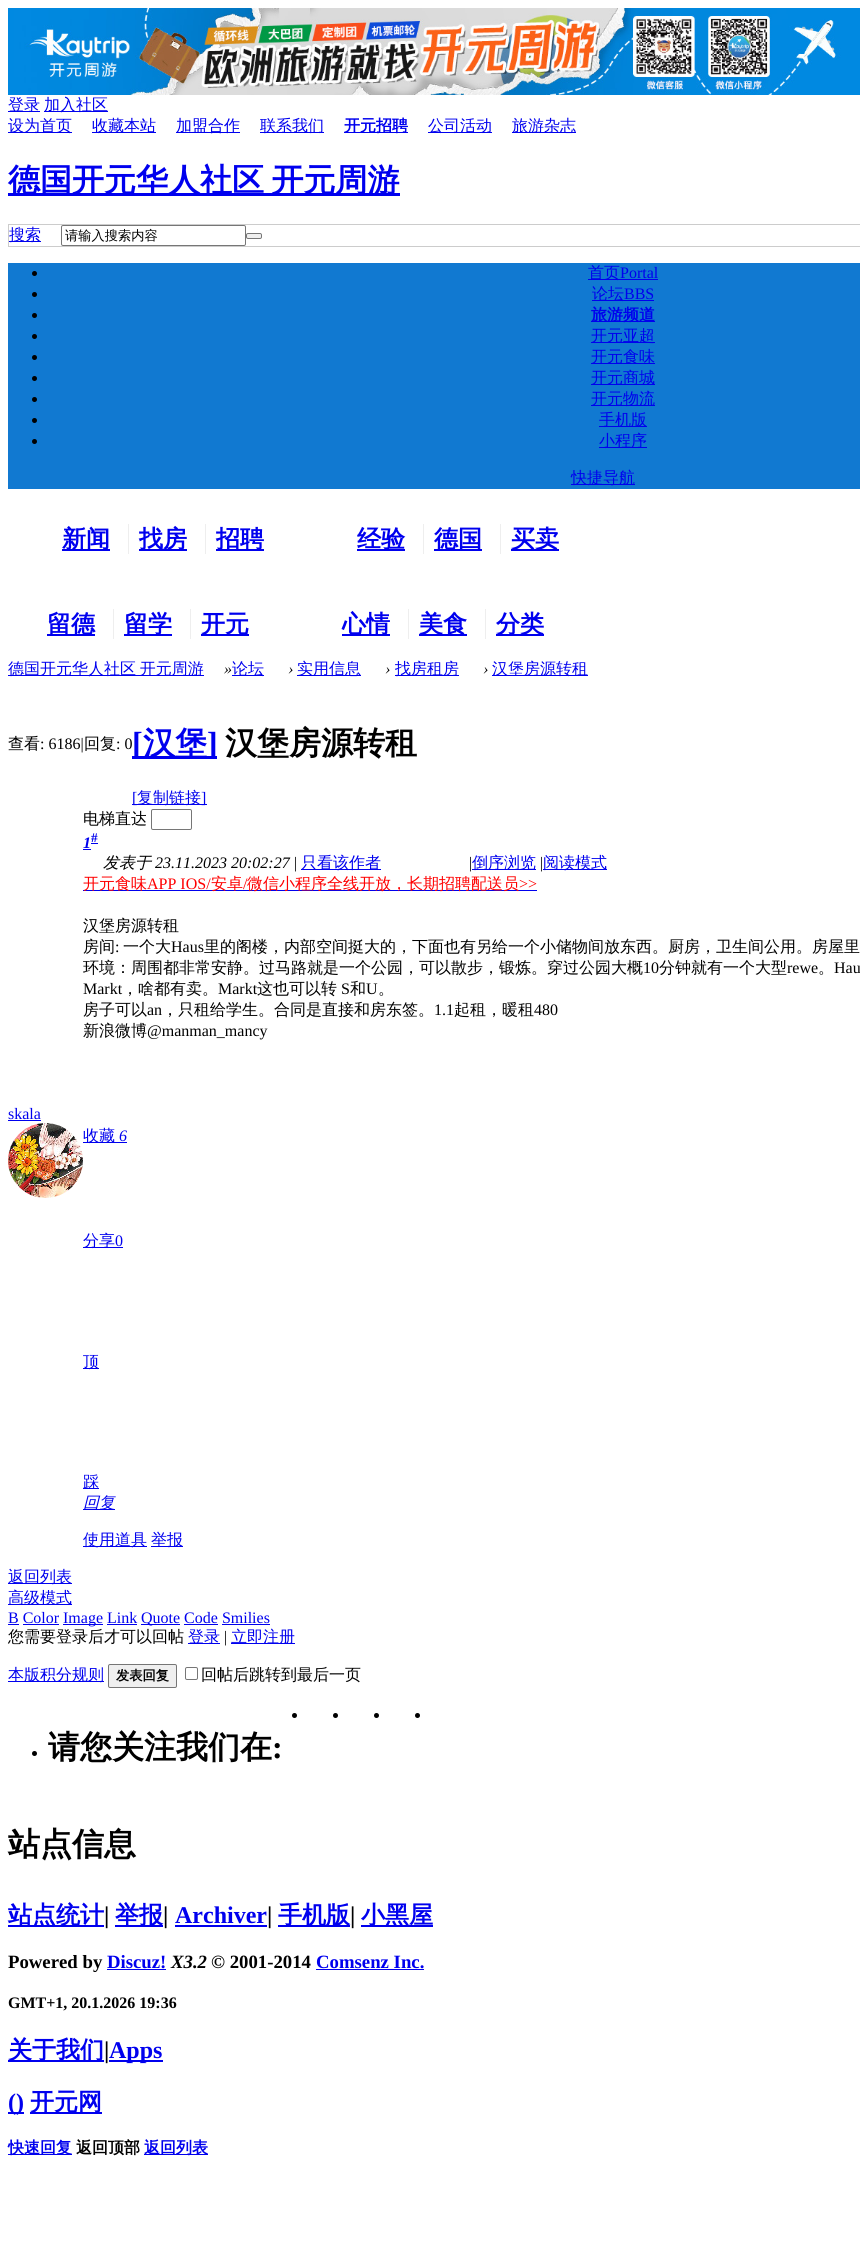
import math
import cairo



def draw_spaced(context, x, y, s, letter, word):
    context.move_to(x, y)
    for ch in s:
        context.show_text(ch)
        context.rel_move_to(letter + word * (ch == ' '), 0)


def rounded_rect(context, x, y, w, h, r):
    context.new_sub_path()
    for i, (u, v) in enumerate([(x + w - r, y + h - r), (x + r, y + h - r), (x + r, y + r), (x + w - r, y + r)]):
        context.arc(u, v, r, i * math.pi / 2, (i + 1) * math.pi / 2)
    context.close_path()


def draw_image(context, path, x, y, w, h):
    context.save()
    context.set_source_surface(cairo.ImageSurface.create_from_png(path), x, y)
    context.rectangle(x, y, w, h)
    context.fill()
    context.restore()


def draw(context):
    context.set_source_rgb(1, 1, 1)
    context.paint()
    draw_image(context, "images/1.png", 8, 8, 852, 87)
    context.set_source_rgb(0, 0, 238 / 255)
    context.rectangle(8, 111, 32, 1)
    context.fill()
    context.rectangle(44, 111, 64, 1)
    context.fill()
    context.rectangle(8, 132, 64, 1)
    context.fill()
    context.rectangle(92, 132, 64, 1)
    context.fill()
    context.rectangle(176, 132, 64, 1)
    context.fill()
    context.rectangle(260, 132, 64, 1)
    context.fill()
    context.rectangle(344, 132, 64, 1)
    context.fill()
    context.rectangle(428, 132, 64, 1)
    context.fill()
    context.rectangle(512, 132, 64, 1)
    context.fill()
    context.rectangle(8, 193, 392, 3)
    context.fill()
    context.rectangle(8.5, 224.5, 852, 22)
    context.set_source_rgb(204 / 255, 204 / 255, 204 / 255)
    context.set_line_width(1)
    context.stroke()
    context.set_source_rgb(0, 0, 238 / 255)
    context.rectangle(9, 241, 32, 1)
    context.fill()
    rounded_rect(context, 61.5, 225.5, 184, 20, 1.5)
    context.set_source_rgb(118 / 255, 118 / 255, 118 / 255)
    context.stroke()
    context.set_source_rgb(239 / 255, 239 / 255, 239 / 255)
    rounded_rect(context, 246.5, 233.5, 15, 5, 1.5)
    context.fill_preserve()
    context.set_source_rgb(118 / 255, 118 / 255, 118 / 255)
    context.stroke()
    context.set_source_rgb(17 / 255, 121 / 255, 209 / 255)
    context.rectangle(8, 263, 852, 226)
    context.fill()
    context.set_source_rgb(0, 0, 0)
    context.arc(34.5, 273.5, 2.5, 0, 2 * math.pi)
    context.fill()
    context.set_source_rgb(0, 0, 238 / 255)
    context.rectangle(588, 279, 70, 1)
    context.fill()
    context.set_source_rgb(0, 0, 0)
    context.arc(34.5, 294.5, 2.5, 0, 2 * math.pi)
    context.fill()
    context.set_source_rgb(0, 0, 238 / 255)
    context.rectangle(592, 300, 62, 1)
    context.fill()
    context.set_source_rgb(0, 0, 0)
    context.arc(34.5, 315.5, 2.5, 0, 2 * math.pi)
    context.fill()
    context.set_source_rgb(0, 0, 238 / 255)
    context.rectangle(591, 321, 64, 1)
    context.fill()
    context.set_source_rgb(0, 0, 0)
    context.arc(34.5, 336.5, 2.5, 0, 2 * math.pi)
    context.fill()
    context.set_source_rgb(0, 0, 238 / 255)
    context.rectangle(591, 342, 64, 1)
    context.fill()
    context.set_source_rgb(0, 0, 0)
    context.arc(34.5, 357.5, 2.5, 0, 2 * math.pi)
    context.fill()
    context.set_source_rgb(0, 0, 238 / 255)
    context.rectangle(591, 363, 64, 1)
    context.fill()
    context.set_source_rgb(0, 0, 0)
    context.arc(34.5, 378.5, 2.5, 0, 2 * math.pi)
    context.fill()
    context.set_source_rgb(0, 0, 238 / 255)
    context.rectangle(591, 384, 64, 1)
    context.fill()
    context.set_source_rgb(0, 0, 0)
    context.arc(34.5, 399.5, 2.5, 0, 2 * math.pi)
    context.fill()
    context.set_source_rgb(0, 0, 238 / 255)
    context.rectangle(591, 405, 64, 1)
    context.fill()
    context.set_source_rgb(0, 0, 0)
    context.arc(34.5, 420.5, 2.5, 0, 2 * math.pi)
    context.fill()
    context.set_source_rgb(0, 0, 238 / 255)
    context.rectangle(599, 426, 48, 1)
    context.fill()
    context.set_source_rgb(0, 0, 0)
    context.arc(34.5, 441.5, 2.5, 0, 2 * math.pi)
    context.fill()
    context.set_source_rgb(0, 0, 238 / 255)
    context.rectangle(599, 447, 48, 1)
    context.fill()
    context.rectangle(571, 484, 64, 1)
    context.fill()
    context.set_source_rgb(238 / 255, 238 / 255, 238 / 255)
    context.rectangle(128, 524, 1, 30)
    context.fill()
    context.set_source_rgb(0, 0, 238 / 255)
    context.rectangle(62, 549, 48, 2)
    context.fill()
    context.set_source_rgb(238 / 255, 238 / 255, 238 / 255)
    context.rectangle(205, 524, 1, 30)
    context.fill()
    context.set_source_rgb(0, 0, 238 / 255)
    context.rectangle(139, 549, 48, 2)
    context.fill()
    context.rectangle(216, 549, 48, 2)
    context.fill()
    context.set_source_rgb(238 / 255, 238 / 255, 238 / 255)
    context.rectangle(423, 524, 1, 30)
    context.fill()
    context.set_source_rgb(0, 0, 238 / 255)
    context.rectangle(357, 549, 48, 2)
    context.fill()
    context.set_source_rgb(238 / 255, 238 / 255, 238 / 255)
    context.rectangle(500, 524, 1, 30)
    context.fill()
    context.set_source_rgb(0, 0, 238 / 255)
    context.rectangle(434, 549, 48, 2)
    context.fill()
    context.rectangle(511, 549, 48, 2)
    context.fill()
    context.set_source_rgb(238 / 255, 238 / 255, 238 / 255)
    context.rectangle(113, 609, 1, 30)
    context.fill()
    context.set_source_rgb(0, 0, 238 / 255)
    context.rectangle(47, 634, 48, 2)
    context.fill()
    context.set_source_rgb(238 / 255, 238 / 255, 238 / 255)
    context.rectangle(190, 609, 1, 30)
    context.fill()
    context.set_source_rgb(0, 0, 238 / 255)
    context.rectangle(124, 634, 48, 2)
    context.fill()
    context.rectangle(201, 634, 48, 2)
    context.fill()
    context.set_source_rgb(238 / 255, 238 / 255, 238 / 255)
    context.rectangle(408, 609, 1, 30)
    context.fill()
    context.set_source_rgb(0, 0, 238 / 255)
    context.rectangle(342, 634, 48, 2)
    context.fill()
    context.set_source_rgb(238 / 255, 238 / 255, 238 / 255)
    context.rectangle(485, 609, 1, 30)
    context.fill()
    context.set_source_rgb(0, 0, 238 / 255)
    context.rectangle(419, 634, 48, 2)
    context.fill()
    context.rectangle(496, 634, 48, 2)
    context.fill()
    context.rectangle(8, 675, 196, 1)
    context.fill()
    context.rectangle(232, 675, 32, 1)
    context.fill()
    context.rectangle(297, 675, 64, 1)
    context.fill()
    context.rectangle(395, 675, 64, 1)
    context.fill()
    context.rectangle(492, 675, 96, 1)
    context.fill()
    context.rectangle(132, 756, 85, 3)
    context.fill()
    context.rectangle(132, 804, 75, 1)
    context.fill()
    rounded_rect(context, 151.5, 809.5, 40, 20, 1.5)
    context.set_source_rgb(118 / 255, 118 / 255, 118 / 255)
    context.stroke()
    context.set_source_rgb(0, 0, 238 / 255)
    context.rectangle(83, 849, 8, 1)
    context.fill()
    context.rectangle(91, 843, 7, 1)
    context.fill()
    context.rectangle(301, 869, 80, 1)
    context.fill()
    context.rectangle(472, 869, 64, 1)
    context.fill()
    context.rectangle(543, 869, 64, 1)
    context.fill()
    context.rectangle(83, 890, 454, 1)
    context.fill()
    context.rectangle(8, 1120, 33, 1)
    context.fill()
    draw_image(context, "images/2.png", 8, 1123, 75, 75)
    context.rectangle(83, 1142, 44, 1)
    context.fill()
    context.rectangle(83, 1247, 40, 1)
    context.fill()
    context.rectangle(83, 1368, 16, 1)
    context.fill()
    context.rectangle(83, 1488, 16, 1)
    context.fill()
    context.rectangle(83, 1509, 32, 1)
    context.fill()
    context.rectangle(83, 1546, 64, 1)
    context.fill()
    context.rectangle(151, 1546, 32, 1)
    context.fill()
    context.rectangle(8, 1583, 64, 1)
    context.fill()
    context.rectangle(8, 1604, 64, 1)
    context.fill()
    context.rectangle(8, 1624, 11, 1)
    context.fill()
    context.rectangle(63, 1624, 40, 1)
    context.fill()
    context.rectangle(141, 1624, 39, 1)
    context.fill()
    context.rectangle(23, 1624, 36, 1)
    context.fill()
    context.rectangle(107, 1624, 30, 1)
    context.fill()
    context.rectangle(184, 1624, 34, 1)
    context.fill()
    context.rectangle(222, 1624, 48, 1)
    context.fill()
    context.rectangle(188, 1643, 32, 1)
    context.fill()
    context.rectangle(231, 1643, 64, 1)
    context.fill()
    context.rectangle(8, 1681, 96, 1)
    context.fill()
    context.set_source_rgb(239 / 255, 239 / 255, 239 / 255)
    rounded_rect(context, 108.5, 1664.5, 68, 23, 1.5)
    context.fill_preserve()
    context.set_source_rgb(118 / 255, 118 / 255, 118 / 255)
    context.stroke()
    rounded_rect(context, 185.5, 1667.5, 12, 12, 1.5)
    context.stroke()
    context.set_source_rgb(0, 0, 0)
    context.arc(294.5, 1715.5, 2.5, 0, 2 * math.pi)
    context.fill()
    context.arc(335.5, 1715.5, 2.5, 0, 2 * math.pi)
    context.fill()
    context.arc(376.5, 1715.5, 2.5, 0, 2 * math.pi)
    context.fill()
    context.arc(417.5, 1715.5, 2.5, 0, 2 * math.pi)
    context.fill()
    context.arc(34.5, 1753.5, 2.5, 0, 2 * math.pi)
    context.fill()
    context.set_source_rgb(0, 0, 238 / 255)
    context.rectangle(8, 1925, 96, 2)
    context.fill()
    context.rectangle(115, 1925, 48, 2)
    context.fill()
    context.rectangle(175, 1925, 92, 2)
    context.fill()
    context.rectangle(278, 1925, 72, 2)
    context.fill()
    context.rectangle(361, 1925, 72, 2)
    context.fill()
    context.rectangle(107, 1969, 59, 1)
    context.fill()
    context.rectangle(316, 1969, 108, 1)
    context.fill()
    context.rectangle(8, 2060, 96, 2)
    context.fill()
    context.rectangle(109, 2060, 54, 2)
    context.fill()
    context.rectangle(8, 2112, 16, 2)
    context.fill()
    context.rectangle(30, 2112, 72, 2)
    context.fill()
    context.rectangle(8, 2154, 64, 1)
    context.fill()
    context.rectangle(144, 2154, 64, 1)
    context.fill()
    context.select_font_face("WenQuanYi Zen Hei Medium")
    context.set_font_size(16)
    context.move_to(8, 110)
    context.show_text("登录")
    context.move_to(44, 110)
    context.show_text("加入社区")
    context.move_to(8, 131)
    context.show_text("设为首页")
    context.move_to(92, 131)
    context.show_text("收藏本站")
    context.move_to(176, 131)
    context.show_text("加盟合作")
    context.move_to(260, 131)
    context.show_text("联系我们")
    context.select_font_face("WenQuanYi Zen Hei", cairo.FontSlant.NORMAL, cairo.FontWeight.BOLD)
    context.move_to(344, 131)
    context.show_text("开元招聘")
    context.select_font_face("WenQuanYi Zen Hei Medium")
    context.move_to(428, 131)
    context.show_text("公司活动")
    context.move_to(512, 131)
    context.show_text("旅游杂志")
    context.select_font_face("WenQuanYi Zen Hei", cairo.FontSlant.NORMAL, cairo.FontWeight.BOLD)
    context.set_font_size(32)
    draw_spaced(context, 8, 191, "德国开元华人社区 开元周游", 0, -2)
    context.select_font_face("WenQuanYi Zen Hei Medium")
    context.set_font_size(16)
    context.move_to(9, 240)
    context.show_text("搜索")
    context.set_font_size(13.25)
    context.set_source_rgb(0, 0, 0)
    context.move_to(65, 240)
    context.show_text("请输入搜索内容")
    context.set_font_size(16)
    context.set_source_rgb(0, 0, 238 / 255)
    context.move_to(588, 278)
    context.show_text("首页")
    context.select_font_face("Liberation Serif")
    context.move_to(620, 278)
    context.show_text("Portal")
    context.select_font_face("WenQuanYi Zen Hei Medium")
    context.move_to(592, 299)
    context.show_text("论坛")
    context.select_font_face("Liberation Serif")
    context.move_to(624, 299)
    context.show_text("BBS")
    context.select_font_face("WenQuanYi Zen Hei", cairo.FontSlant.NORMAL, cairo.FontWeight.BOLD)
    context.move_to(591, 320)
    context.show_text("旅游频道")
    context.select_font_face("WenQuanYi Zen Hei Medium")
    context.move_to(591, 341)
    context.show_text("开元亚超")
    context.move_to(591, 362)
    context.show_text("开元食味")
    context.move_to(591, 383)
    context.show_text("开元商城")
    context.move_to(591, 404)
    context.show_text("开元物流")
    context.move_to(599, 425)
    context.show_text("手机版")
    context.move_to(599, 446)
    context.show_text("小程序")
    context.move_to(571, 483)
    context.show_text("快捷导航")
    context.select_font_face("WenQuanYi Zen Hei", cairo.FontSlant.NORMAL, cairo.FontWeight.BOLD)
    context.set_font_size(24)
    context.move_to(62, 547)
    context.show_text("新闻")
    context.move_to(139, 547)
    context.show_text("找房")
    context.move_to(216, 547)
    context.show_text("招聘")
    context.move_to(357, 547)
    context.show_text("经验")
    context.move_to(434, 547)
    context.show_text("德国")
    context.move_to(511, 547)
    context.show_text("买卖")
    context.move_to(47, 632)
    context.show_text("留德")
    context.move_to(124, 632)
    context.show_text("留学")
    context.move_to(201, 632)
    context.show_text("开元")
    context.move_to(342, 632)
    context.show_text("心情")
    context.move_to(419, 632)
    context.show_text("美食")
    context.move_to(496, 632)
    context.show_text("分类")
    context.select_font_face("WenQuanYi Zen Hei Medium")
    context.set_font_size(16)
    draw_spaced(context, 8, 674, "德国开元华人社区 开元周游", 0, -1)
    context.select_font_face("Liberation Serif", cairo.FontSlant.ITALIC)
    context.set_source_rgb(0, 0, 0)
    context.move_to(224, 674)
    context.show_text("»")
    context.select_font_face("WenQuanYi Zen Hei Medium")
    context.set_source_rgb(0, 0, 238 / 255)
    context.move_to(232, 674)
    context.show_text("论坛")
    context.select_font_face("Liberation Serif", cairo.FontSlant.ITALIC)
    context.set_source_rgb(0, 0, 0)
    context.move_to(288, 674)
    context.show_text("›")
    context.select_font_face("WenQuanYi Zen Hei Medium")
    context.set_source_rgb(0, 0, 238 / 255)
    context.move_to(297, 674)
    context.show_text("实用信息")
    context.select_font_face("Liberation Serif", cairo.FontSlant.ITALIC)
    context.set_source_rgb(0, 0, 0)
    context.move_to(385, 674)
    context.show_text("›")
    context.select_font_face("WenQuanYi Zen Hei Medium")
    context.set_source_rgb(0, 0, 238 / 255)
    context.move_to(395, 674)
    context.show_text("找房租房")
    context.select_font_face("Liberation Serif", cairo.FontSlant.ITALIC)
    context.set_source_rgb(0, 0, 0)
    context.move_to(483, 674)
    context.show_text("›")
    context.select_font_face("WenQuanYi Zen Hei Medium")
    context.set_source_rgb(0, 0, 238 / 255)
    context.move_to(492, 674)
    context.show_text("汉堡房源转租")
    context.set_source_rgb(0, 0, 0)
    context.move_to(8, 749)
    context.show_text("查看")
    context.select_font_face("Liberation Serif")
    context.move_to(40, 749)
    context.show_text(": 6186|")
    context.select_font_face("WenQuanYi Zen Hei Medium")
    context.move_to(84, 749)
    context.show_text("回复")
    context.select_font_face("Liberation Serif")
    context.move_to(116, 749)
    context.show_text(": 0")
    context.select_font_face("Liberation Serif", cairo.FontSlant.NORMAL, cairo.FontWeight.BOLD)
    context.set_font_size(32)
    context.set_source_rgb(0, 0, 238 / 255)
    context.move_to(132, 754)
    context.show_text("[")
    context.select_font_face("WenQuanYi Zen Hei", cairo.FontSlant.NORMAL, cairo.FontWeight.BOLD)
    context.move_to(143, 754)
    context.show_text("汉堡")
    context.select_font_face("Liberation Serif", cairo.FontSlant.NORMAL, cairo.FontWeight.BOLD)
    context.move_to(207, 754)
    context.show_text("]")
    context.select_font_face("WenQuanYi Zen Hei", cairo.FontSlant.NORMAL, cairo.FontWeight.BOLD)
    context.set_source_rgb(0, 0, 0)
    context.move_to(225, 754)
    context.show_text("汉堡房源转租")
    context.select_font_face("Liberation Serif")
    context.set_font_size(16)
    context.set_source_rgb(0, 0, 238 / 255)
    context.move_to(132, 803)
    context.show_text("[")
    context.select_font_face("WenQuanYi Zen Hei Medium")
    context.move_to(137, 803)
    context.show_text("复制链接")
    context.select_font_face("Liberation Serif")
    context.move_to(201, 803)
    context.show_text("]")
    context.select_font_face("WenQuanYi Zen Hei Medium")
    context.set_source_rgb(0, 0, 0)
    context.move_to(83, 824)
    context.show_text("电梯直达")
    context.select_font_face("Liberation Serif", cairo.FontSlant.ITALIC, cairo.FontWeight.BOLD)
    context.set_source_rgb(0, 0, 238 / 255)
    context.move_to(83, 848)
    context.show_text("1")
    context.select_font_face("Liberation Serif", cairo.FontSlant.NORMAL, cairo.FontWeight.BOLD)
    context.set_font_size(13.25)
    context.move_to(91, 842)
    context.show_text("#")
    context.select_font_face("WenQuanYi Zen Hei Medium", cairo.FontSlant.ITALIC)
    context.set_font_size(16)
    context.set_source_rgb(0, 0, 0)
    context.move_to(103, 868)
    context.show_text("发表于")
    context.select_font_face("Liberation Serif", cairo.FontSlant.ITALIC)
    context.move_to(155, 868)
    context.show_text("23.11.2023 20:02:27")
    context.select_font_face("Liberation Serif")
    context.move_to(294, 868)
    context.show_text("|")
    context.select_font_face("WenQuanYi Zen Hei Medium")
    context.set_source_rgb(0, 0, 238 / 255)
    context.move_to(301, 868)
    context.show_text("只看该作者")
    context.select_font_face("Liberation Serif")
    context.set_source_rgb(0, 0, 0)
    context.move_to(469, 868)
    context.show_text("|")
    context.select_font_face("WenQuanYi Zen Hei Medium")
    context.set_source_rgb(0, 0, 238 / 255)
    context.move_to(472, 868)
    context.show_text("倒序浏览")
    context.select_font_face("Liberation Serif")
    context.set_source_rgb(0, 0, 0)
    context.move_to(540, 868)
    context.show_text("|")
    context.select_font_face("WenQuanYi Zen Hei Medium")
    context.set_source_rgb(0, 0, 238 / 255)
    context.move_to(543, 868)
    context.show_text("阅读模式")
    context.set_source_rgb(1, 0, 0)
    context.move_to(83, 889)
    context.show_text("开元食味")
    context.select_font_face("Liberation Serif")
    context.move_to(147, 889)
    context.show_text("APP IOS/")
    context.select_font_face("WenQuanYi Zen Hei Medium")
    context.move_to(211, 889)
    context.show_text("安卓")
    context.select_font_face("Liberation Serif")
    context.move_to(243, 889)
    context.show_text("/")
    context.select_font_face("WenQuanYi Zen Hei Medium")
    context.move_to(247, 889)
    context.show_text("微信小程序全线开放，长期招聘配送员")
    context.select_font_face("Liberation Serif")
    context.move_to(519, 889)
    context.show_text(">>")
    context.select_font_face("WenQuanYi Zen Hei Medium")
    context.set_source_rgb(0, 0, 0)
    context.move_to(83, 931)
    context.show_text("汉堡房源转租")
    context.move_to(83, 952)
    context.show_text("房间")
    context.select_font_face("Liberation Serif")
    context.move_to(115, 952)
    context.show_text(":")
    context.select_font_face("WenQuanYi Zen Hei Medium")
    context.move_to(123, 952)
    context.show_text("一个大")
    context.select_font_face("Liberation Serif")
    context.move_to(171, 952)
    context.show_text("Haus")
    context.select_font_face("WenQuanYi Zen Hei Medium")
    context.move_to(204, 952)
    context.show_text("里的阁楼，内部空间挺大的，下面也有另给一个小储物间放东西。厨房，卫生间公用。房屋里")
    context.move_to(83, 973)
    context.show_text("环境：周围都非常安静。过马路就是一个公园，可以散步，锻炼。穿过公园大概")
    context.select_font_face("Liberation Serif")
    context.move_to(643, 973)
    context.show_text("10")
    context.select_font_face("WenQuanYi Zen Hei Medium")
    context.move_to(659, 973)
    context.show_text("分钟就有一个大型")
    context.select_font_face("Liberation Serif")
    context.move_to(787, 973)
    context.show_text("rewe")
    context.select_font_face("WenQuanYi Zen Hei Medium")
    context.move_to(818, 973)
    context.show_text("。")
    context.select_font_face("Liberation Serif")
    context.move_to(834, 973)
    context.show_text("Hau")
    context.move_to(83, 994)
    context.show_text("Markt")
    context.select_font_face("WenQuanYi Zen Hei Medium")
    context.move_to(122, 994)
    context.show_text("，啥都有卖。")
    context.select_font_face("Liberation Serif")
    context.move_to(218, 994)
    context.show_text("Markt")
    context.select_font_face("WenQuanYi Zen Hei Medium")
    context.move_to(257, 994)
    context.show_text("这也可以转")
    context.select_font_face("Liberation Serif")
    context.move_to(341, 994)
    context.show_text("S")
    context.select_font_face("WenQuanYi Zen Hei Medium")
    context.move_to(350, 994)
    context.show_text("和")
    context.select_font_face("Liberation Serif")
    context.move_to(366, 994)
    context.show_text("U")
    context.select_font_face("WenQuanYi Zen Hei Medium")
    context.move_to(378, 994)
    context.show_text("。")
    context.move_to(83, 1015)
    context.show_text("房子可以")
    context.select_font_face("Liberation Serif")
    context.move_to(147, 1015)
    context.show_text("an")
    context.select_font_face("WenQuanYi Zen Hei Medium")
    context.move_to(162, 1015)
    context.show_text("，只租给学生。合同是直接和房东签。")
    context.select_font_face("Liberation Serif")
    context.move_to(434, 1015)
    context.show_text("1.1")
    context.select_font_face("WenQuanYi Zen Hei Medium")
    context.move_to(454, 1015)
    context.show_text("起租，暖租")
    context.select_font_face("Liberation Serif")
    context.move_to(534, 1015)
    context.show_text("480")
    context.select_font_face("WenQuanYi Zen Hei Medium")
    context.move_to(83, 1036)
    context.show_text("新浪微博")
    context.select_font_face("Liberation Serif")
    context.move_to(147, 1036)
    context.show_text("@manman_mancy")
    context.set_source_rgb(0, 0, 238 / 255)
    context.move_to(8, 1119)
    context.show_text("skala")
    context.select_font_face("WenQuanYi Zen Hei Medium")
    context.move_to(83, 1141)
    context.show_text("收藏")
    context.select_font_face("Liberation Serif", cairo.FontSlant.ITALIC)
    context.move_to(119, 1141)
    context.show_text("6")
    context.select_font_face("WenQuanYi Zen Hei Medium")
    context.move_to(83, 1246)
    context.show_text("分享")
    context.select_font_face("Liberation Serif")
    context.move_to(115, 1246)
    context.show_text("0")
    context.select_font_face("WenQuanYi Zen Hei Medium")
    context.move_to(83, 1367)
    context.show_text("顶")
    context.move_to(83, 1487)
    context.show_text("踩")
    context.select_font_face("WenQuanYi Zen Hei Medium", cairo.FontSlant.ITALIC)
    context.move_to(83, 1508)
    context.show_text("回复")
    context.select_font_face("WenQuanYi Zen Hei Medium")
    context.move_to(83, 1545)
    context.show_text("使用道具")
    context.move_to(151, 1545)
    context.show_text("举报")
    context.move_to(8, 1582)
    context.show_text("返回列表")
    context.move_to(8, 1603)
    context.show_text("高级模式")
    context.select_font_face("Liberation Serif")
    context.move_to(8, 1623)
    context.show_text("B Color")
    context.move_to(63, 1623)
    context.show_text("Image Link")
    context.move_to(141, 1623)
    context.show_text("Quote Code Smilies")
    context.select_font_face("WenQuanYi Zen Hei Medium")
    context.set_source_rgb(0, 0, 0)
    context.move_to(8, 1642)
    context.show_text("您需要登录后才可以回帖")
    context.set_source_rgb(0, 0, 238 / 255)
    context.move_to(188, 1642)
    context.show_text("登录")
    context.select_font_face("Liberation Serif")
    context.set_source_rgb(0, 0, 0)
    context.move_to(224, 1642)
    context.show_text("|")
    context.select_font_face("WenQuanYi Zen Hei Medium")
    context.set_source_rgb(0, 0, 238 / 255)
    context.move_to(231, 1642)
    context.show_text("立即注册")
    context.move_to(8, 1680)
    context.show_text("本版积分规则")
    context.select_font_face("WenQuanYi Zen Hei", cairo.FontSlant.NORMAL, cairo.FontWeight.BOLD)
    context.set_font_size(13.25)
    context.set_source_rgb(0, 0, 0)
    context.move_to(116, 1680)
    context.show_text("发表回复")
    context.select_font_face("WenQuanYi Zen Hei Medium")
    context.set_font_size(16)
    context.move_to(201, 1680)
    context.show_text("回帖后跳转到最后一页")
    context.select_font_face("WenQuanYi Zen Hei", cairo.FontSlant.NORMAL, cairo.FontWeight.BOLD)
    context.set_font_size(32)
    context.move_to(48, 1758)
    context.show_text("请您关注我们在")
    context.select_font_face("Liberation Serif", cairo.FontSlant.NORMAL, cairo.FontWeight.BOLD)
    context.move_to(272, 1758)
    context.show_text(":")
    context.select_font_face("WenQuanYi Zen Hei", cairo.FontSlant.NORMAL, cairo.FontWeight.BOLD)
    context.move_to(8, 1855)
    context.show_text("站点信息")
    context.set_font_size(24)
    context.set_source_rgb(0, 0, 238 / 255)
    context.move_to(8, 1923)
    context.show_text("站点统计")
    context.select_font_face("Liberation Serif", cairo.FontSlant.NORMAL, cairo.FontWeight.BOLD)
    context.set_source_rgb(0, 0, 0)
    context.move_to(104, 1923)
    context.show_text("|")
    context.select_font_face("WenQuanYi Zen Hei", cairo.FontSlant.NORMAL, cairo.FontWeight.BOLD)
    context.set_source_rgb(0, 0, 238 / 255)
    context.move_to(115, 1923)
    context.show_text("举报")
    context.select_font_face("Liberation Serif", cairo.FontSlant.NORMAL, cairo.FontWeight.BOLD)
    context.set_source_rgb(0, 0, 0)
    context.move_to(163, 1923)
    context.show_text("|")
    context.set_source_rgb(0, 0, 238 / 255)
    context.move_to(175, 1923)
    context.show_text("Archiver")
    context.set_source_rgb(0, 0, 0)
    context.move_to(267, 1923)
    context.show_text("|")
    context.select_font_face("WenQuanYi Zen Hei", cairo.FontSlant.NORMAL, cairo.FontWeight.BOLD)
    context.set_source_rgb(0, 0, 238 / 255)
    context.move_to(278, 1923)
    context.show_text("手机版")
    context.select_font_face("Liberation Serif", cairo.FontSlant.NORMAL, cairo.FontWeight.BOLD)
    context.set_source_rgb(0, 0, 0)
    context.move_to(350, 1923)
    context.show_text("|")
    context.select_font_face("WenQuanYi Zen Hei", cairo.FontSlant.NORMAL, cairo.FontWeight.BOLD)
    context.set_source_rgb(0, 0, 238 / 255)
    context.move_to(361, 1923)
    context.show_text("小黑屋")
    context.select_font_face("Liberation Serif", cairo.FontSlant.NORMAL, cairo.FontWeight.BOLD)
    context.set_font_size(18.75)
    context.set_source_rgb(0, 0, 0)
    context.move_to(8, 1968)
    context.show_text("Powered by")
    context.set_source_rgb(0, 0, 238 / 255)
    context.move_to(107, 1968)
    context.show_text("Discuz!")
    context.select_font_face("Liberation Serif", cairo.FontSlant.ITALIC, cairo.FontWeight.BOLD)
    context.set_source_rgb(0, 0, 0)
    context.move_to(171, 1968)
    context.show_text("X3.2")
    context.select_font_face("Liberation Serif", cairo.FontSlant.NORMAL, cairo.FontWeight.BOLD)
    context.move_to(211, 1968)
    context.show_text("© 2001-2014")
    context.set_source_rgb(0, 0, 238 / 255)
    context.move_to(316, 1968)
    context.show_text("Comsenz Inc.")
    context.set_font_size(16)
    context.set_source_rgb(0, 0, 0)
    context.move_to(8, 2008)
    context.show_text("GMT+1, 20.1.2026 19:36")
    context.select_font_face("WenQuanYi Zen Hei", cairo.FontSlant.NORMAL, cairo.FontWeight.BOLD)
    context.set_font_size(24)
    context.set_source_rgb(0, 0, 238 / 255)
    context.move_to(8, 2058)
    context.show_text("关于我们")
    context.select_font_face("Liberation Serif", cairo.FontSlant.NORMAL, cairo.FontWeight.BOLD)
    context.set_source_rgb(0, 0, 0)
    context.move_to(104, 2058)
    context.show_text("|")
    context.set_source_rgb(0, 0, 238 / 255)
    context.move_to(109, 2058)
    context.show_text("Apps")
    context.move_to(8, 2110)
    context.show_text("()")
    context.select_font_face("WenQuanYi Zen Hei", cairo.FontSlant.NORMAL, cairo.FontWeight.BOLD)
    context.move_to(30, 2110)
    context.show_text("开元网")
    context.set_font_size(16)
    context.move_to(8, 2153)
    context.show_text("快速回复")
    context.set_source_rgb(0, 0, 0)
    context.move_to(76, 2153)
    context.show_text("返回顶部")
    context.set_source_rgb(0, 0, 238 / 255)
    context.move_to(144, 2153)
    context.show_text("返回列表")


surface = cairo.ImageSurface(cairo.Format.RGB24, 860, 2259)
context = cairo.Context(surface)
options = cairo.FontOptions()
options.set_hint_metrics(cairo.HintMetrics.OFF)
options.set_hint_style(cairo.HintStyle.NONE)
context.set_font_options(options)
context.set_miter_limit(4)
draw(context)
surface.write_to_png("out.png")
